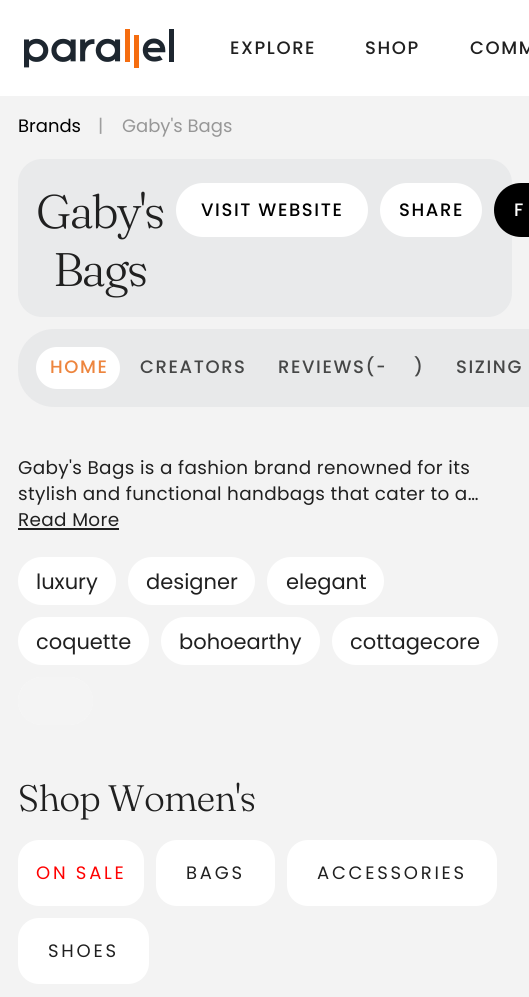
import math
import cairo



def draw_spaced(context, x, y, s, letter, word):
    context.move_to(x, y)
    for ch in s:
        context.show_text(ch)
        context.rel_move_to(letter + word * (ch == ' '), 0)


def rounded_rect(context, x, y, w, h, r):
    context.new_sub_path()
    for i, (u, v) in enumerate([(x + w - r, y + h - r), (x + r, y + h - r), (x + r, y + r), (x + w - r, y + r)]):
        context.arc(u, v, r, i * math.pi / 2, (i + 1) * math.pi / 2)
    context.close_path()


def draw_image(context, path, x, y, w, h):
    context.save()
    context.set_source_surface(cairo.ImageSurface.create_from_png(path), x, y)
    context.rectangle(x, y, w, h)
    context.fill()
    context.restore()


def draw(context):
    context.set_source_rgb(243 / 255, 243 / 255, 243 / 255)
    context.paint()
    context.set_source_rgb(1, 1, 1)
    context.rectangle(0, 0, 529, 96)
    context.fill()
    draw_image(context, "images/1.png", 24, 29, 150, 39)
    context.set_source_rgb(233 / 255, 234 / 255, 235 / 255)
    rounded_rect(context, 18, 159, 494, 158, 24)
    context.fill()
    context.set_source_rgb(1, 1, 1)
    rounded_rect(context, 176, 183, 192, 54, 27)
    context.fill()
    rounded_rect(context, 380, 183, 102, 54, 27)
    context.fill()
    context.set_source_rgb(0, 0, 0)
    rounded_rect(context, 494, 183, 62, 54, 27)
    context.fill()
    context.set_source_rgb(232 / 255, 233 / 255, 234 / 255)
    rounded_rect(context, 18, 329, 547, 78, 36)
    context.fill()
    context.set_source_rgb(1, 1, 1)
    rounded_rect(context, 36, 347, 84, 42, 21)
    context.fill()
    context.set_source_rgb(32 / 255, 32 / 255, 32 / 255)
    context.rectangle(18, 528, 101, 2)
    context.fill()
    context.set_source_rgb(1, 1, 1)
    rounded_rect(context, 18, 557, 98, 48, 24)
    context.fill()
    rounded_rect(context, 128, 557, 127, 48, 24)
    context.fill()
    rounded_rect(context, 267, 557, 117, 48, 24)
    context.fill()
    rounded_rect(context, 18, 617, 131, 48, 24)
    context.fill()
    rounded_rect(context, 161, 617, 159, 48, 24)
    context.fill()
    rounded_rect(context, 332, 617, 166, 48, 24)
    context.fill()
    context.set_source_rgb(248 / 255, 248 / 255, 248 / 255)
    rounded_rect(context, 18, 677, 75, 48, 24)
    context.fill()
    context.set_source_rgba(243 / 255, 243 / 255, 243 / 255, 0.87)
    rounded_rect(context, 18, 677, 75, 48, 24)
    context.fill()
    context.set_source_rgb(1, 1, 1)
    rounded_rect(context, 18, 840, 126, 66, 21)
    context.fill()
    rounded_rect(context, 156, 840, 119, 66, 21)
    context.fill()
    rounded_rect(context, 287, 840, 210, 66, 21)
    context.fill()
    rounded_rect(context, 18, 918, 131, 66, 21)
    context.fill()
    context.select_font_face("Poppins Medium")
    context.set_font_size(18)
    context.set_source_rgb(32 / 255, 32 / 255, 32 / 255)
    draw_spaced(context, 230, 54, "EXPLORE", 1.6, 0)
    draw_spaced(context, 365, 54, "SHOP", 1.6, 0)
    draw_spaced(context, 470, 54, "COMM", 1.6, 0)
    context.select_font_face("Poppins")
    context.set_source_rgb(0, 0, 0)
    context.move_to(18, 132)
    context.show_text("Brands")
    context.set_source_rgb(158 / 255, 158 / 255, 158 / 255)
    context.move_to(98, 132)
    context.show_text("|")
    context.set_source_rgb(151 / 255, 151 / 255, 151 / 255)
    context.move_to(122, 132)
    context.show_text("Gaby's Bags")
    context.select_font_face("Fraunces Light")
    context.set_font_size(47)
    context.set_source_rgb(32 / 255, 32 / 255, 32 / 255)
    draw_spaced(context, 36, 228, "Gaby's", -2, 0)
    draw_spaced(context, 53, 286, "Bags", -2, 0)
    context.select_font_face("Poppins Medium")
    context.set_font_size(18)
    context.set_source_rgb(0, 0, 0)
    draw_spaced(context, 201, 216, "VISIT WEBSITE", 1.6, 0)
    draw_spaced(context, 399, 216, "SHARE", 1.6, 0)
    context.set_source_rgb(1, 1, 1)
    draw_spaced(context, 514, 216, "F", 1.6, 0)
    context.set_source_rgb(237 / 255, 133 / 255, 62 / 255)
    draw_spaced(context, 50, 373, "HOME", 1.6, 0)
    context.set_source_rgb(70 / 255, 71 / 255, 71 / 255)
    draw_spaced(context, 140, 373, "CREATORS", 1.6, 0)
    draw_spaced(context, 278, 373, "REVIEWS(-", 1.6, 0)
    draw_spaced(context, 414, 373, ")", 1.6, 0)
    context.set_source_rgb(232 / 255, 233 / 255, 234 / 255)
    context.new_path()
    context.arc(400, 367, 16, 0, 2 * math.pi)
    context.fill()
    context.set_source_rgb(70 / 255, 71 / 255, 71 / 255)
    draw_spaced(context, 456, 373, "SIZING", 1.6, 0)
    context.select_font_face("Poppins")
    context.set_font_size(18.4)
    context.set_source_rgb(32 / 255, 32 / 255, 32 / 255)
    draw_spaced(context, 18, 474, "Gaby's Bags is a fashion brand renowned for its", 0.35, 0)
    draw_spaced(context, 18, 500, "stylish and functional handbags that cater to a…", 0.35, 0)
    draw_spaced(context, 18, 526, "Read More", 0.35, 0)
    context.set_font_size(21)
    context.move_to(36, 589)
    context.show_text("luxury")
    context.move_to(146, 589)
    context.show_text("designer")
    context.move_to(286, 589)
    context.show_text("elegant")
    context.move_to(36, 649)
    context.show_text("coquette")
    context.move_to(179, 649)
    context.show_text("bohoearthy")
    context.move_to(350, 649)
    context.show_text("cottagecore")
    context.select_font_face("Fraunces Light")
    context.set_font_size(36.75)
    draw_spaced(context, 18, 811, "Shop Women's", -0.8, 0)
    context.select_font_face("Poppins")
    context.set_font_size(18)
    context.set_source_rgb(1, 0, 0)
    draw_spaced(context, 36, 879, "ON SALE", 2.75, 0)
    context.set_source_rgb(32 / 255, 32 / 255, 32 / 255)
    draw_spaced(context, 186, 879, "BAGS", 2.75, 0)
    draw_spaced(context, 317, 879, "ACCESSORIES", 2.75, 0)
    draw_spaced(context, 48, 957, "SHOES", 2.75, 0)


surface = cairo.ImageSurface(cairo.Format.RGB24, 529, 997)
context = cairo.Context(surface)
options = cairo.FontOptions()
options.set_hint_metrics(cairo.HintMetrics.OFF)
options.set_hint_style(cairo.HintStyle.NONE)
context.set_font_options(options)
context.set_miter_limit(4)
draw(context)
surface.write_to_png("out.png")
